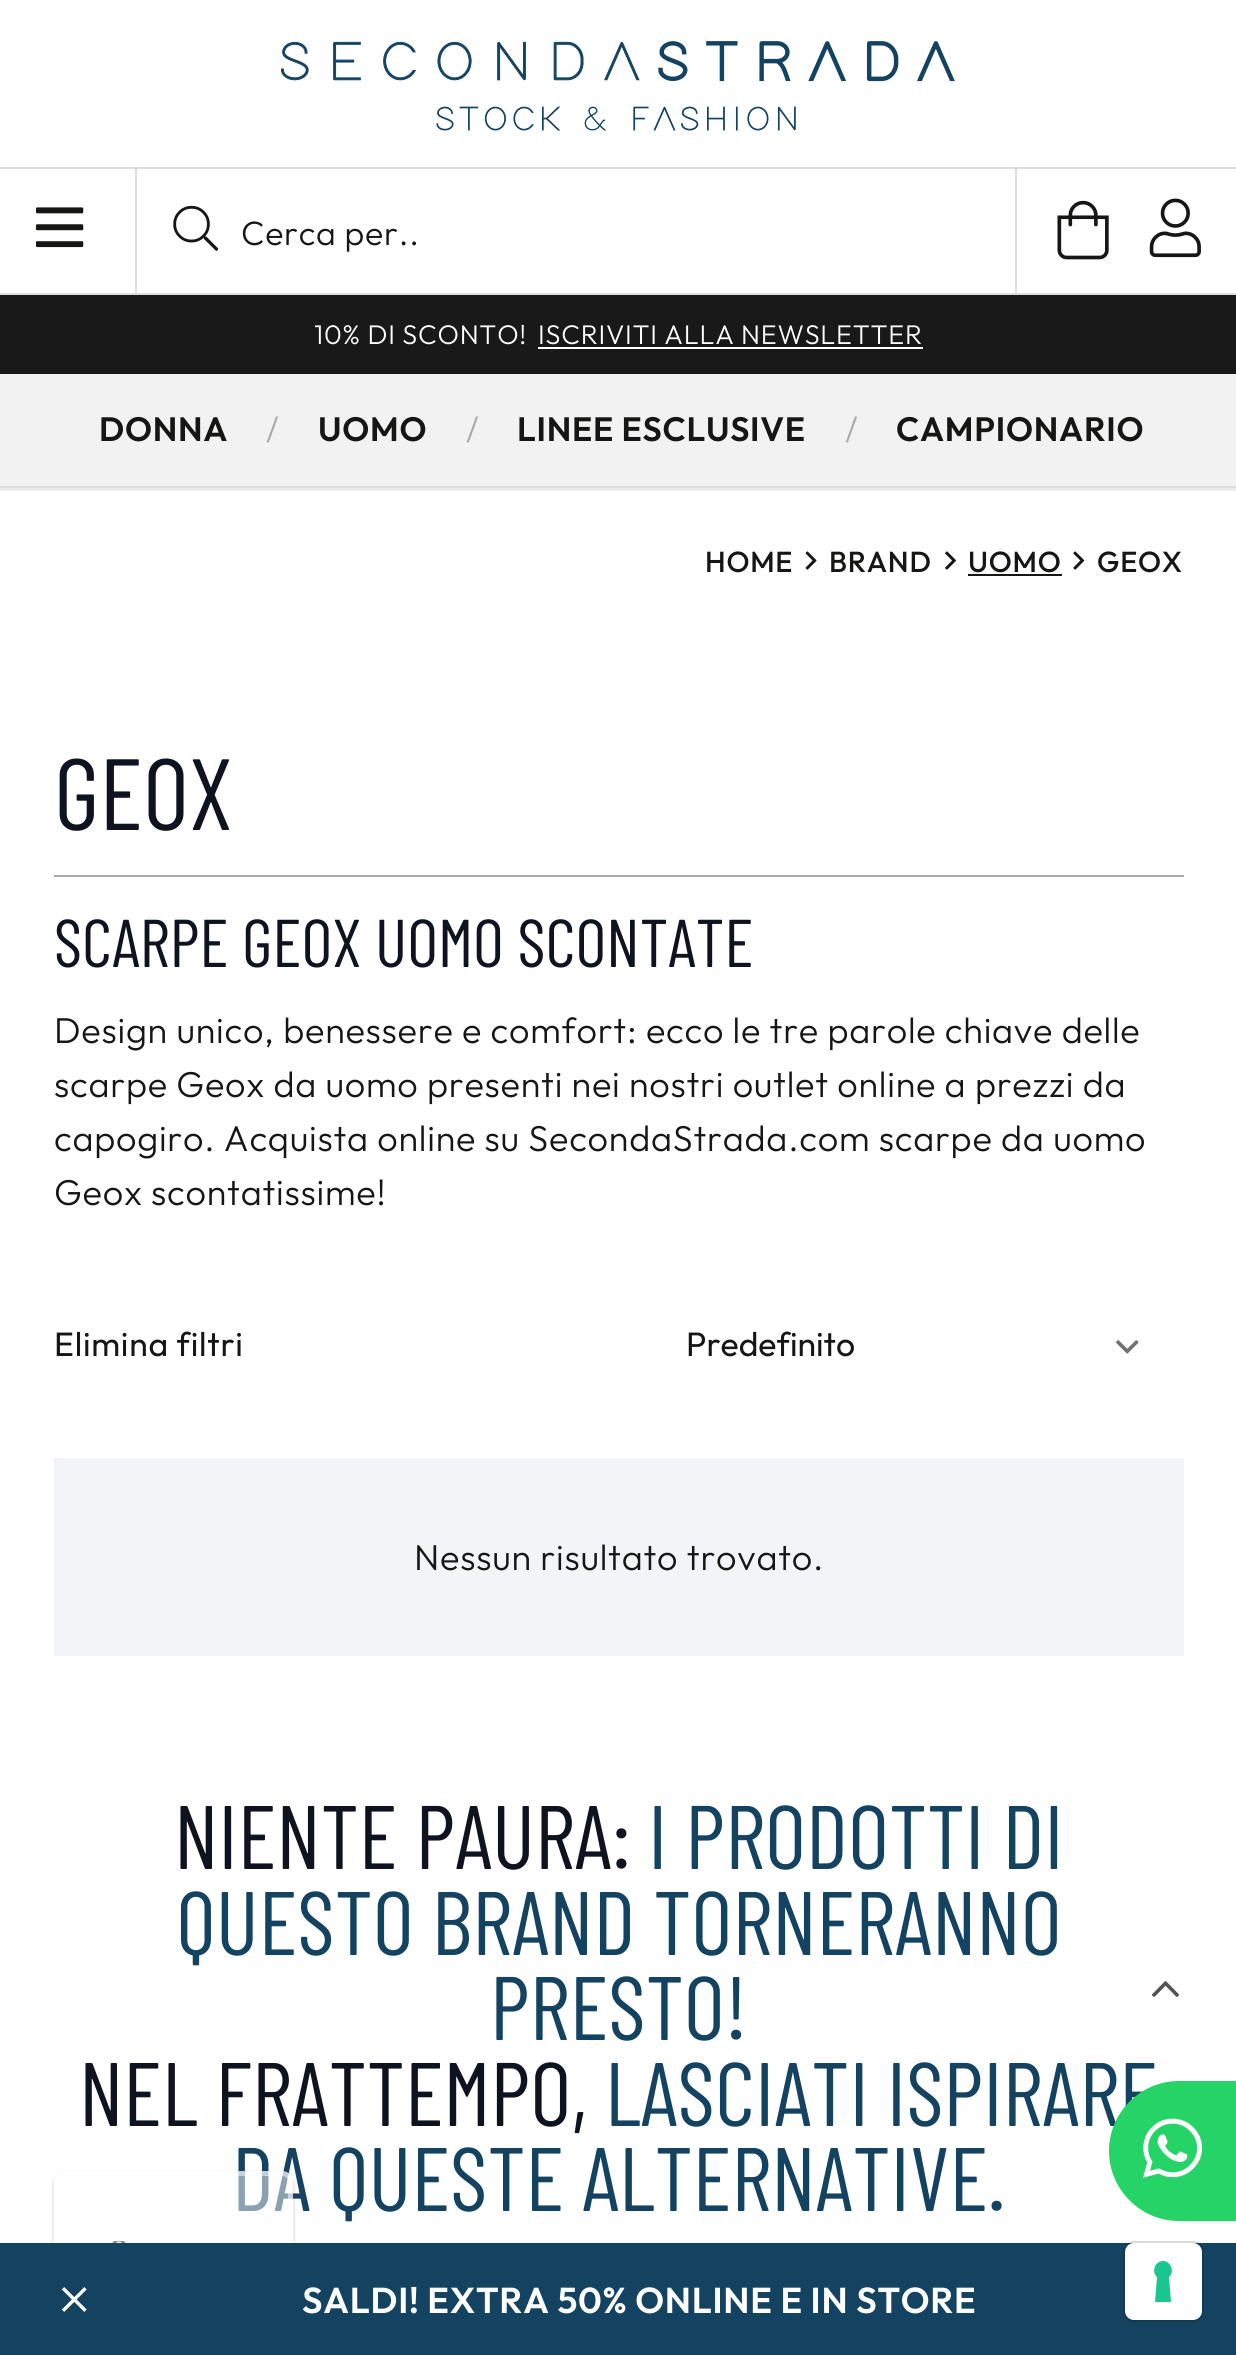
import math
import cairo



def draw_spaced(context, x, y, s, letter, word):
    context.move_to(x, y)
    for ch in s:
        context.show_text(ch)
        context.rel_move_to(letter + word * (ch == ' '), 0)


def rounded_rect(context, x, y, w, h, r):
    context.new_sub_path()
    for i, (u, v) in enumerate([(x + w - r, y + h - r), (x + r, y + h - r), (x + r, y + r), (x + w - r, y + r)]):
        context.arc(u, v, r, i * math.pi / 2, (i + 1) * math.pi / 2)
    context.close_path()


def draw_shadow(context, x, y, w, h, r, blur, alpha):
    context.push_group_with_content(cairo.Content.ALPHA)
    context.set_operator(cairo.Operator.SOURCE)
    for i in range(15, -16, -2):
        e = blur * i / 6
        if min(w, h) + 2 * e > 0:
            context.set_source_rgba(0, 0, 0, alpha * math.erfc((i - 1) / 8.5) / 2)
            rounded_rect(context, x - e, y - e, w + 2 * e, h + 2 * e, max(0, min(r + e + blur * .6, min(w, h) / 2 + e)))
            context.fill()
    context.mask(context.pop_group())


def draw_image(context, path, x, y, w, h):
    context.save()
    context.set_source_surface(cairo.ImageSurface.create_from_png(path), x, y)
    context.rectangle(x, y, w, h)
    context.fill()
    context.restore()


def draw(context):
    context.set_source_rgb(1, 1, 1)
    context.paint()
    context.set_source_rgb(222 / 255, 222 / 255, 222 / 255)
    context.rectangle(0, 167, 1236, 2)
    context.fill()
    draw_image(context, "images/1.png", 281, 41, 674, 90)
    draw_image(context, "images/2.png", 36, 207, 48, 41)
    context.rectangle(0, 293, 1236, 2)
    context.fill()
    context.rectangle(1015, 167, 2, 128)
    context.fill()
    context.rectangle(135, 167, 2, 128)
    context.fill()
    draw_image(context, "images/3.png", 173, 205, 46, 46)
    draw_image(context, "images/4.png", 1057, 200, 52, 60)
    draw_image(context, "images/5.png", 1149, 198, 52, 60)
    context.set_source_rgb(235 / 255, 235 / 255, 235 / 255)
    context.new_path()
    context.move_to(0, 488)
    context.line_to(0, 491)
    context.line_to(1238, 491)
    context.line_to(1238, 295)
    context.line_to(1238, 488)
    context.close_path()
    context.fill()
    context.set_source_rgb(242 / 255, 242 / 255, 242 / 255)
    context.rectangle(0, 374, 1236, 112)
    context.fill()
    context.set_source_rgb(222 / 255, 222 / 255, 222 / 255)
    context.rectangle(0, 486, 1236, 2)
    context.fill()
    context.set_source_rgb(25 / 255, 25 / 255, 25 / 255)
    context.rectangle(0, 295, 1236, 79)
    context.fill()
    context.set_source_rgb(1, 1, 1)
    context.rectangle(538, 347, 385, 2)
    context.fill()
    draw_image(context, "images/6.png", 805, 551, 12, 19)
    draw_image(context, "images/7.png", 945, 551, 11, 19)
    context.set_source_rgb(22 / 255, 22 / 255, 21 / 255)
    context.rectangle(968, 574, 94, 2)
    context.fill()
    draw_image(context, "images/8.png", 1073, 551, 12, 19)
    context.set_source_rgb(170 / 255, 170 / 255, 170 / 255)
    context.rectangle(54, 875, 1130, 2)
    context.fill()
    draw_image(context, "images/9.png", 1116, 1340, 23, 14)
    context.set_source_rgb(242 / 255, 244 / 255, 247 / 255)
    context.rectangle(54, 1458, 1130, 198)
    context.fill()
    context.save()
    context.set_fill_rule(cairo.FillRule.EVEN_ODD)
    context.new_path()
    context.move_to(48, 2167)
    context.line_to(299, 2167)
    context.line_to(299, 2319)
    context.line_to(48, 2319)
    context.close_path()
    context.move_to(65, 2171)
    context.line_to(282, 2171)
    context.curve_to(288, 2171, 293, 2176, 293, 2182)
    context.line_to(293, 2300)
    context.curve_to(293, 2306, 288, 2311, 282, 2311)
    context.line_to(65, 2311)
    context.curve_to(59, 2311, 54, 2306, 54, 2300)
    context.line_to(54, 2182)
    context.curve_to(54, 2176, 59, 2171, 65, 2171)
    context.close_path()
    context.clip()
    context.set_source_rgb(0, 0, 0)
    draw_shadow(context, 52, 2171, 243, 144, 14, 1, 0.08)
    context.restore()
    draw_image(context, "images/11.png", 1152, 1981, 27, 16)
    context.select_font_face("Outfit Light")
    context.set_font_size(33.75)
    context.set_source_rgb(22 / 255, 22 / 255, 21 / 255)
    draw_spaced(context, 241, 245, "Cerca per..", 0.75, 0)
    context.set_font_size(27)
    context.set_source_rgb(1, 1, 1)
    draw_spaced(context, 314, 344, "10% DI SCONTO!", 0.75, 0)
    draw_spaced(context, 538, 344, "ISCRIVITI ALLA NEWSLETTER", 0.75, 0)
    context.select_font_face("Outfit SemiBold")
    context.set_font_size(33.75)
    context.set_source_rgb(22 / 255, 22 / 255, 21 / 255)
    draw_spaced(context, 99, 441, "DONNA", 0.75, 0)
    context.select_font_face("Outfit Light")
    context.set_source_rgb(170 / 255, 170 / 255, 170 / 255)
    draw_spaced(context, 266, 441, "/", 0.75, 0)
    context.select_font_face("Outfit SemiBold")
    context.set_source_rgb(22 / 255, 22 / 255, 21 / 255)
    draw_spaced(context, 318, 441, "UOMO", 0.75, 0)
    context.select_font_face("Outfit Light")
    context.set_source_rgb(170 / 255, 170 / 255, 170 / 255)
    draw_spaced(context, 466, 441, "/", 0.75, 0)
    context.select_font_face("Outfit SemiBold")
    context.set_source_rgb(22 / 255, 22 / 255, 21 / 255)
    draw_spaced(context, 517, 441, "LINEE ESCLUSIVE", 0.75, 0)
    context.select_font_face("Outfit Light")
    context.set_source_rgb(170 / 255, 170 / 255, 170 / 255)
    draw_spaced(context, 845, 441, "/", 0.75, 0)
    context.select_font_face("Outfit SemiBold")
    context.set_source_rgb(22 / 255, 22 / 255, 21 / 255)
    draw_spaced(context, 896, 441, "CAMPIONARIO", 0.75, 0)
    context.select_font_face("Outfit Medium")
    context.set_font_size(29)
    draw_spaced(context, 705, 572, "HOME", 0.75, 0)
    draw_spaced(context, 829, 572, "BRAND", 0.75, 0)
    draw_spaced(context, 968, 572, "UOMO", 0.75, 0)
    draw_spaced(context, 1097, 572, "GEOX", 0.75, 0)
    context.select_font_face("Barlow Condensed")
    context.set_font_size(101)
    context.set_source_rgb(15 / 255, 19 / 255, 31 / 255)
    context.move_to(54, 830)
    context.show_text("GEOX")
    context.set_font_size(67.5)
    context.move_to(54, 967)
    context.show_text("SCARPE GEOX UOMO SCONTATE")
    context.select_font_face("Outfit Light")
    context.set_font_size(36)
    context.set_source_rgb(22 / 255, 22 / 255, 21 / 255)
    draw_spaced(context, 54, 1043, "Design unico, benessere e comfort: ecco le tre parole chiave delle", 0.75, 0)
    draw_spaced(context, 54, 1097, "scarpe Geox da uomo presenti nei nostri outlet online a prezzi da", 0.75, 0)
    draw_spaced(context, 54, 1151, "capogiro. Acquista online su SecondaStrada.com scarpe da uomo", 0.75, 0)
    draw_spaced(context, 54, 1205, "Geox scontatissime!", 0.75, 0)
    context.select_font_face("Outfit")
    context.set_font_size(33.75)
    draw_spaced(context, 54, 1356, "Elimina filtri", 0.75, 0)
    context.move_to(686, 1356)
    context.show_text("Predefinito")
    context.select_font_face("Outfit Light")
    context.set_font_size(36)
    draw_spaced(context, 414, 1570, "Nessun risultato trovato.", 0.75, 0)
    context.select_font_face("Barlow Condensed")
    context.set_font_size(90)
    context.set_source_rgb(15 / 255, 19 / 255, 31 / 255)
    context.move_to(174, 1869)
    context.show_text("NIENTE PAURA:")
    context.set_source_rgb(20 / 255, 67 / 255, 97 / 255)
    context.move_to(648, 1869)
    context.show_text("I PRODOTTI DI")
    context.move_to(176, 1955)
    context.show_text("QUESTO BRAND TORNERANNO")
    context.move_to(490, 2040)
    context.show_text("PRESTO!")
    context.set_source_rgb(15 / 255, 19 / 255, 31 / 255)
    context.move_to(79, 2126)
    context.show_text("NEL FRATTEMPO,")
    context.set_source_rgb(20 / 255, 67 / 255, 97 / 255)
    context.move_to(605, 2126)
    context.show_text("LASCIATI ISPIRARE")
    context.move_to(232, 2211)
    context.show_text("DA QUESTE ALTERNATIVE.")
    context.set_source_rgba(1, 1, 1, 0.5)
    rounded_rect(context, 54, 2171, 239, 140, 11)
    context.fill()
    rounded_rect(context, 56.5, 2173.5, 234, 135, 8.5)
    context.set_line_width(5)
    context.stroke()
    draw_image(context, "images/10.png", 112, 2241, 14, 2)
    context.set_source_rgb(37 / 255, 211 / 255, 102 / 255)
    context.new_path()
    context.move_to(1179, 2081)
    context.line_to(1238, 2081)
    context.line_to(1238, 2221)
    context.line_to(1179, 2221)
    context.curve_to(1140.5, 2221, 1109, 2189.5, 1109, 2151)
    context.curve_to(1109, 2112.5, 1140.5, 2081, 1179, 2081)
    context.close_path()
    context.fill()
    draw_image(context, "images/12.png", 1143, 2118, 60, 60)
    context.set_source_rgb(20 / 255, 67 / 255, 97 / 255)
    context.rectangle(0, 2243, 1236, 112)
    context.fill()
    draw_image(context, "images/13.png", 61, 2287, 26, 25)
    context.select_font_face("Outfit SemiBold")
    context.set_font_size(36)
    context.set_source_rgb(1, 1, 1)
    draw_spaced(context, 302, 2313, "SALDI! EXTRA 50% ONLINE E IN STORE", 0.75, 0)
    rounded_rect(context, 1124, 2242, 79, 79, 10)
    context.set_source_rgba(0, 0, 0, 0.15)
    context.set_line_width(2)
    context.stroke()
    context.set_source_rgb(1, 1, 1)
    rounded_rect(context, 1125, 2243, 77, 77, 9)
    context.fill()
    context.set_source_rgb(28 / 255, 198 / 255, 145 / 255)
    context.set_fill_rule(cairo.FillRule.EVEN_ODD)
    context.new_path()
    context.move_to(1163, 2261)
    context.curve_to(1171, 2261, 1175, 2272, 1169, 2277)
    context.line_to(1171, 2302)
    context.line_to(1155, 2302)
    context.line_to(1157, 2277)
    context.curve_to(1151, 2272, 1155, 2261, 1163, 2261)
    context.close_path()
    context.fill()


surface = cairo.ImageSurface(cairo.Format.RGB24, 1236, 2355)
context = cairo.Context(surface)
options = cairo.FontOptions()
options.set_hint_metrics(cairo.HintMetrics.OFF)
options.set_hint_style(cairo.HintStyle.NONE)
context.set_font_options(options)
context.set_miter_limit(4)
draw(context)
surface.write_to_png("out.png")
